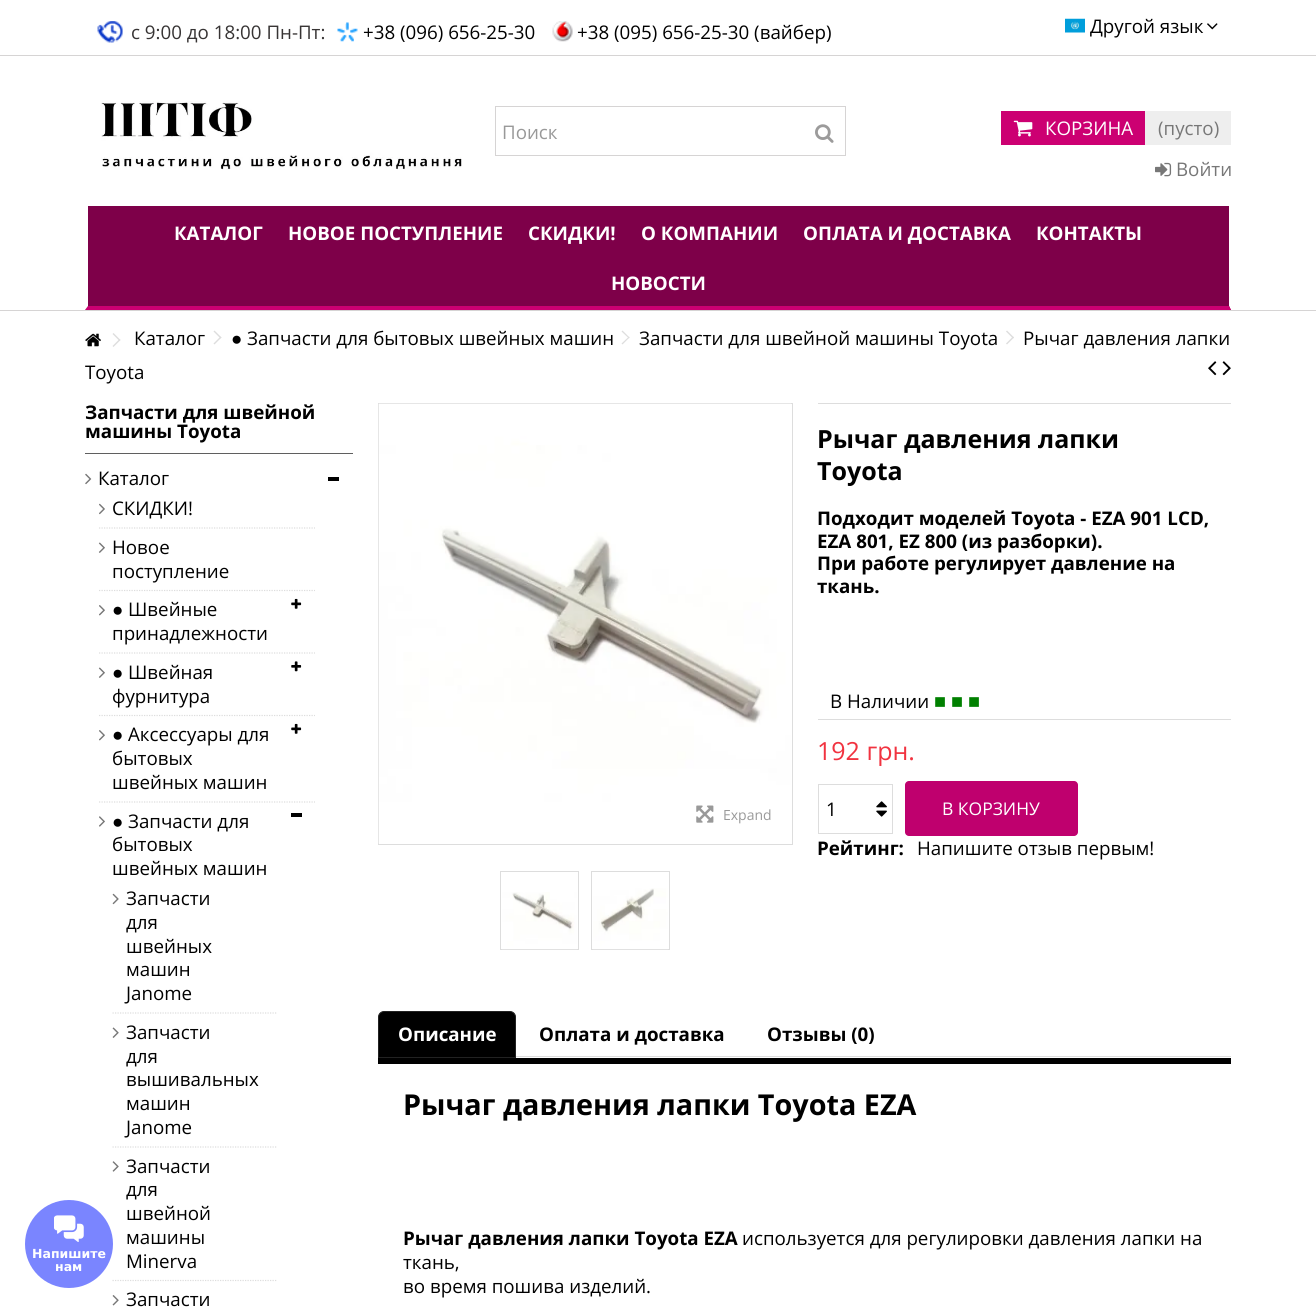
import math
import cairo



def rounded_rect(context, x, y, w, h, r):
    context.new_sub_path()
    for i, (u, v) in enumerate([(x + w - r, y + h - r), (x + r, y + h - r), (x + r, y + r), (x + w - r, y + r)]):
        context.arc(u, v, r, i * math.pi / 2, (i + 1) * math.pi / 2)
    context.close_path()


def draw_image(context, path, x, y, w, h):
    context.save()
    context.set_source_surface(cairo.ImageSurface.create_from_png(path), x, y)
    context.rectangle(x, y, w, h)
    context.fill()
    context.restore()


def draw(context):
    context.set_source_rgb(1, 1, 1)
    context.paint()
    context.new_path()
    context.move_to(112.5, 1280.5)
    context.line_to(277.5, 1280.5)
    context.set_source_rgb(221 / 255, 221 / 255, 221 / 255)
    context.set_line_width(1.2)
    context.set_dash([1.25, 1.25])
    context.stroke()
    context.set_source_rgb(122 / 255, 133 / 255, 1)
    context.arc(69, 1244, 44, 0, 2 * math.pi)
    context.fill()
    draw_image(context, "images/1.png", 54, 1215, 30, 27)
    context.set_source_rgb(214 / 255, 212 / 255, 212 / 255)
    context.rectangle(0, 310, 1316, 1)
    context.fill()
    context.rectangle(0, 55, 1316, 1)
    context.fill()
    draw_image(context, "images/2.png", 97, 21, 26, 22)
    draw_image(context, "images/3.png", 337, 22, 21, 20)
    draw_image(context, "images/4.png", 552, 21, 21, 21)
    draw_image(context, "images/5.png", 1065, 18, 20, 15)
    draw_image(context, "images/6.png", 1207, 23, 11, 7)
    draw_image(context, "images/7.png", 101, 101, 361, 69)
    context.rectangle(495.5, 106.5, 350, 49)
    context.set_line_width(1)
    context.set_dash([])
    context.stroke()
    draw_image(context, "images/8.png", 815, 124, 19, 19)
    context.set_source_rgb(204 / 255, 0, 114 / 255)
    context.rectangle(1001, 111, 144, 34)
    context.fill()
    draw_image(context, "images/9.png", 1013, 120, 20, 17)
    context.set_source_rgb(238 / 255, 238 / 255, 238 / 255)
    context.rectangle(1145, 111, 86, 34)
    context.fill()
    draw_image(context, "images/10.png", 1155, 162, 17, 15)
    context.set_source_rgb(126 / 255, 0, 73 / 255)
    context.rectangle(85, 206, 1146, 104)
    context.fill()
    context.set_source_rgb(1, 1, 1)
    context.new_path()
    context.move_to(1231, 206)
    context.line_to(1231, 310)
    context.line_to(1229, 306)
    context.line_to(1229, 206)
    context.close_path()
    context.fill()
    context.set_source_rgb(204 / 255, 0, 114 / 255)
    context.new_path()
    context.move_to(1231, 310)
    context.line_to(85, 310)
    context.line_to(88, 306)
    context.line_to(1229, 306)
    context.close_path()
    context.fill()
    context.set_source_rgb(1, 1, 1)
    context.new_path()
    context.move_to(85, 310)
    context.line_to(85, 206)
    context.line_to(88, 206)
    context.line_to(88, 306)
    context.close_path()
    context.fill()
    context.set_source_rgb(221 / 255, 221 / 255, 221 / 255)
    context.new_path()
    context.move_to(214.5, 330.5)
    context.line_to(221.5, 337.5)
    context.line_to(220.5, 338.5)
    context.line_to(213.5, 331.5)
    context.close_path()
    context.fill()
    context.new_path()
    context.move_to(220.5, 336.5)
    context.line_to(221.5, 337.5)
    context.line_to(214.5, 344.5)
    context.line_to(213.5, 343.5)
    context.close_path()
    context.fill()
    context.new_path()
    context.move_to(622.5, 330.5)
    context.line_to(629.5, 337.5)
    context.line_to(629, 338.5)
    context.line_to(621.5, 331.5)
    context.close_path()
    context.fill()
    context.new_path()
    context.move_to(629, 336.5)
    context.line_to(629.5, 337.5)
    context.line_to(622.5, 344.5)
    context.line_to(621.5, 343.5)
    context.close_path()
    context.fill()
    context.new_path()
    context.move_to(1007, 330.5)
    context.line_to(1014, 337.5)
    context.line_to(1013, 338.5)
    context.line_to(1006, 331.5)
    context.close_path()
    context.fill()
    context.new_path()
    context.move_to(1013, 336.5)
    context.line_to(1014, 337.5)
    context.line_to(1007, 344.5)
    context.line_to(1006, 343.5)
    context.close_path()
    context.fill()
    draw_image(context, "images/11.png", 85, 333, 16, 14)
    context.new_path()
    context.move_to(113.5, 333)
    context.line_to(120.5, 340)
    context.line_to(119.5, 341)
    context.line_to(112.5, 334)
    context.close_path()
    context.fill()
    context.new_path()
    context.move_to(119.5, 339)
    context.line_to(120.5, 340)
    context.line_to(113.5, 347)
    context.line_to(112.5, 346)
    context.close_path()
    context.fill()
    draw_image(context, "images/12.png", 1208, 361, 9, 15)
    draw_image(context, "images/13.png", 1222, 361, 9, 15)
    context.set_source_rgb(95 / 255, 95 / 255, 95 / 255)
    context.rectangle(85, 453, 268, 1)
    context.fill()
    draw_image(context, "images/14.png", 85, 473, 7, 12)
    context.set_source_rgb(0, 0, 0)
    context.rectangle(328, 477, 11, 4)
    context.fill()
    draw_image(context, "images/15.png", 99, 503, 6, 12)
    context.new_path()
    context.move_to(99, 528)
    context.line_to(315, 528)
    context.set_source_rgb(221 / 255, 221 / 255, 221 / 255)
    context.set_line_width(1.2)
    context.set_dash([1.25, 1.25])
    context.stroke()
    draw_image(context, "images/16.png", 98, 542, 7, 11)
    context.new_path()
    context.move_to(99, 590.5)
    context.line_to(315, 590.5)
    context.stroke()
    draw_image(context, "images/17.png", 99, 605, 6, 11)
    draw_image(context, "images/18.png", 291, 598, 11, 11)
    context.new_path()
    context.move_to(99, 653)
    context.line_to(315, 653)
    context.stroke()
    draw_image(context, "images/16.png", 98, 667, 7, 11)
    draw_image(context, "images/19.png", 291, 661, 11, 11)
    context.new_path()
    context.move_to(99, 715.5)
    context.line_to(315, 715.5)
    context.stroke()
    draw_image(context, "images/17.png", 99, 730, 6, 11)
    draw_image(context, "images/18.png", 291, 723, 11, 11)
    context.new_path()
    context.move_to(99, 802)
    context.line_to(315, 802)
    context.stroke()
    draw_image(context, "images/20.png", 99, 816, 6, 11)
    context.set_source_rgb(0, 0, 0)
    context.rectangle(291, 813, 11, 4)
    context.fill()
    draw_image(context, "images/21.png", 112, 893, 7, 12)
    context.new_path()
    context.move_to(112.5, 1013)
    context.line_to(277.5, 1013)
    context.set_source_rgb(221 / 255, 221 / 255, 221 / 255)
    context.stroke()
    draw_image(context, "images/22.png", 112, 1027, 7, 11)
    context.new_path()
    context.move_to(112.5, 1147)
    context.line_to(277.5, 1147)
    context.stroke()
    draw_image(context, "images/23.png", 112, 1161, 7, 11)
    draw_image(context, "images/24.png", 112, 1295, 7, 11)
    context.rectangle(378.5, 403.5, 414, 441)
    context.set_line_width(1)
    context.set_dash([])
    context.stroke()
    draw_image(context, "images/25.png", 378, 403, 413, 441)
    draw_image(context, "images/26.png", 696, 805, 18, 18)
    context.rectangle(500.5, 871.5, 78, 78)
    context.stroke()
    draw_image(context, "images/27.png", 502, 892, 75, 58)
    context.rectangle(591.5, 871.5, 78, 78)
    context.stroke()
    draw_image(context, "images/28.png", 593, 888, 75, 62)
    context.rectangle(818, 403, 413, 1)
    context.fill()
    context.rectangle(818, 719, 413, 1)
    context.fill()
    context.rectangle(818.5, 784.5, 74, 49)
    context.stroke()
    draw_image(context, "images/29.png", 876, 801, 11, 7)
    draw_image(context, "images/30.png", 876, 810, 11, 7)
    context.set_source_rgb(191 / 255, 0, 110 / 255)
    rounded_rect(context, 905, 781, 173, 55, 4)
    context.fill()
    context.set_source_rgb(221 / 255, 221 / 255, 221 / 255)
    context.rectangle(516, 1056, 715, 1)
    context.fill()
    context.set_source_rgb(0, 0, 0)
    context.new_path()
    context.move_to(384, 1011.5)
    context.line_to(510, 1011.5)
    context.curve_to(513, 1011.5, 515.5, 1014, 515.5, 1017)
    context.line_to(515.5, 1057.5)
    context.line_to(378.5, 1057.5)
    context.line_to(378.5, 1017)
    context.curve_to(378.5, 1014, 381, 1011.5, 384, 1011.5)
    context.close_path()
    context.fill_preserve()
    context.set_source_rgb(34 / 255, 34 / 255, 34 / 255)
    context.stroke()
    context.set_source_rgb(0, 0, 0)
    context.rectangle(378, 1058, 853, 6)
    context.fill()
    context.select_font_face("DejaVu Sans", cairo.FontSlant.NORMAL, cairo.FontWeight.BOLD)
    context.set_font_size(12.5)
    context.set_source_rgb(1, 1, 1)
    context.move_to(32, 1258)
    context.show_text("Напишите")
    context.move_to(55, 1271)
    context.show_text("нам")
    context.select_font_face("Open Sans")
    context.set_font_size(18.75)
    context.set_source_rgb(55 / 255, 52 / 255, 52 / 255)
    context.move_to(131, 39)
    context.show_text("c 9:00 до 18:00 Пн-Пт:")
    context.set_source_rgb(0, 0, 0)
    context.move_to(363, 39)
    context.show_text("+38 (096) 656-25-30")
    context.move_to(577, 39)
    context.show_text("+38 (095) 656-25-30 (вайбер)")
    context.move_to(1090, 33)
    context.show_text("Другой язык")
    context.set_source_rgb(153 / 255, 153 / 255, 153 / 255)
    context.move_to(502, 139)
    context.show_text("Поиск")
    context.set_source_rgb(1, 1, 1)
    context.move_to(1045, 135)
    context.show_text("КОРЗИНА")
    context.set_source_rgb(119 / 255, 119 / 255, 119 / 255)
    context.move_to(1158, 135)
    context.show_text("(пусто)")
    context.move_to(1176, 176)
    context.show_text("Войти")
    context.select_font_face("Open Sans", cairo.FontSlant.NORMAL, cairo.FontWeight.BOLD)
    context.set_source_rgb(1, 1, 1)
    context.move_to(174, 240)
    context.show_text("КАТАЛОГ")
    context.move_to(288, 240)
    context.show_text("НОВОЕ ПОСТУПЛЕНИЕ")
    context.move_to(528, 240)
    context.show_text("СКИДКИ!")
    context.move_to(641, 240)
    context.show_text("О КОМПАНИИ")
    context.move_to(803, 240)
    context.show_text("ОПЛАТА И ДОСТАВКА")
    context.move_to(1036, 240)
    context.show_text("КОНТАКТЫ")
    context.move_to(611, 290)
    context.show_text("НОВОСТИ")
    context.select_font_face("Open Sans")
    context.set_source_rgb(0, 0, 0)
    context.move_to(134, 345)
    context.show_text("Каталог")
    context.select_font_face("Liberation Sans")
    context.move_to(231, 345)
    context.show_text("●")
    context.select_font_face("Open Sans")
    context.move_to(247, 345)
    context.show_text("Запчасти для бытовых швейных машин")
    context.move_to(639, 345)
    context.show_text("Запчасти для швейной машины Toyota")
    context.move_to(1023, 345)
    context.show_text("Рычаг давления лапки")
    context.move_to(85, 379)
    context.show_text("Toyota")
    context.select_font_face("Open Sans", cairo.FontSlant.NORMAL, cairo.FontWeight.BOLD)
    context.move_to(85, 419)
    context.show_text("Запчасти для швейной")
    context.move_to(85, 438)
    context.show_text("машины Toyota")
    context.select_font_face("Open Sans")
    context.move_to(98, 485)
    context.show_text("Каталог")
    context.move_to(112, 515)
    context.show_text("СКИДКИ!")
    context.move_to(112, 554)
    context.show_text("Новое")
    context.move_to(112, 578)
    context.show_text("поступление")
    context.select_font_face("Liberation Sans")
    context.move_to(112, 616)
    context.show_text("●")
    context.select_font_face("Open Sans")
    context.move_to(128, 616)
    context.show_text("Швейные")
    context.move_to(112, 640)
    context.show_text("принадлежности")
    context.select_font_face("Liberation Sans")
    context.move_to(112, 679)
    context.show_text("●")
    context.select_font_face("Open Sans")
    context.move_to(128, 679)
    context.show_text("Швейная")
    context.move_to(112, 703)
    context.show_text("фурнитура")
    context.select_font_face("Liberation Sans")
    context.move_to(112, 741)
    context.show_text("●")
    context.select_font_face("Open Sans")
    context.move_to(128, 741)
    context.show_text("Аксессуары для")
    context.move_to(112, 765)
    context.show_text("бытовых")
    context.move_to(112, 789)
    context.show_text("швейных машин")
    context.select_font_face("Liberation Sans")
    context.move_to(112, 828)
    context.show_text("●")
    context.select_font_face("Open Sans")
    context.move_to(128, 828)
    context.show_text("Запчасти для")
    context.move_to(112, 851)
    context.show_text("бытовых")
    context.move_to(112, 875)
    context.show_text("швейных машин")
    context.move_to(126, 905)
    context.show_text("Запчасти")
    context.move_to(126, 929)
    context.show_text("для")
    context.move_to(126, 953)
    context.show_text("швейных")
    context.move_to(126, 976)
    context.show_text("машин")
    context.move_to(126, 1000)
    context.show_text("Janome")
    context.move_to(126, 1039)
    context.show_text("Запчасти")
    context.move_to(126, 1063)
    context.show_text("для")
    context.move_to(126, 1086)
    context.show_text("вышивальных")
    context.move_to(126, 1110)
    context.show_text("машин")
    context.move_to(126, 1134)
    context.show_text("Janome")
    context.move_to(126, 1173)
    context.show_text("Запчасти")
    context.move_to(126, 1196)
    context.show_text("для")
    context.move_to(126, 1220)
    context.show_text("швейной")
    context.move_to(126, 1244)
    context.show_text("машины")
    context.move_to(126, 1268)
    context.show_text("Minerva")
    context.move_to(126, 1306)
    context.show_text("Запчасти")
    context.set_font_size(14)
    context.set_source_rgb(153 / 255, 153 / 255, 153 / 255)
    context.move_to(723, 820)
    context.show_text("Expand")
    context.select_font_face("Open Sans", cairo.FontSlant.NORMAL, cairo.FontWeight.BOLD)
    context.set_font_size(25)
    context.set_source_rgb(0, 0, 0)
    context.move_to(817, 448)
    context.show_text("Рычаг давления лапки")
    context.move_to(817, 480)
    context.show_text("Toyota")
    context.set_font_size(18.75)
    context.move_to(817, 525)
    context.show_text("Подходит моделей Toyota - EZA 901 LCD,")
    context.move_to(817, 548)
    context.show_text("EZA 801, EZ 800 (из разборки).")
    context.move_to(817, 570)
    context.show_text("При работе регулирует давление на")
    context.move_to(817, 593)
    context.show_text("ткань.")
    context.select_font_face("Open Sans")
    context.move_to(830, 708)
    context.show_text("В Наличии")
    context.select_font_face("Liberation Sans")
    context.set_font_size(20)
    context.set_source_rgb(0, 128 / 255, 0)
    context.move_to(934, 708)
    context.show_text("■")
    context.move_to(951, 708)
    context.show_text("■")
    context.move_to(968, 708)
    context.show_text("■")
    context.select_font_face("Open Sans")
    context.set_font_size(25)
    context.set_source_rgb(241 / 255, 51 / 255, 64 / 255)
    context.move_to(817, 760)
    context.show_text("192 грн.")
    context.set_font_size(18.75)
    context.set_source_rgb(0, 0, 0)
    context.move_to(826, 816)
    context.show_text("1")
    context.set_font_size(17.5)
    context.set_source_rgb(1, 1, 1)
    context.move_to(942, 815)
    context.show_text("В КОРЗИНУ")
    context.select_font_face("Open Sans", cairo.FontSlant.NORMAL, cairo.FontWeight.BOLD)
    context.set_font_size(18.75)
    context.set_source_rgb(0, 0, 0)
    context.move_to(817, 855)
    context.show_text("Рейтинг:")
    context.select_font_face("Open Sans")
    context.move_to(917, 855)
    context.show_text("Напишите отзыв первым!")
    context.select_font_face("Open Sans", cairo.FontSlant.NORMAL, cairo.FontWeight.BOLD)
    context.set_source_rgb(1, 1, 1)
    context.move_to(398, 1041)
    context.show_text("Описание")
    context.set_source_rgb(0, 0, 0)
    context.move_to(539, 1041)
    context.show_text("Оплата и доставка")
    context.move_to(767, 1041)
    context.show_text("Отзывы (0)")
    context.set_font_size(28.75)
    context.move_to(403, 1115)
    context.show_text("Рычаг давления лапки Toyota EZA")
    context.set_font_size(18.75)
    context.move_to(403, 1245)
    context.show_text("Рычаг давления лапки Toyota EZA")
    context.select_font_face("Open Sans")
    context.move_to(742, 1245)
    context.show_text("используется для регулировки давления лапки на")
    context.move_to(403, 1269)
    context.show_text("ткань,")
    context.move_to(403, 1293)
    context.show_text("во время пошива изделий.")


surface = cairo.ImageSurface(cairo.Format.RGB24, 1316, 1312)
context = cairo.Context(surface)
options = cairo.FontOptions()
options.set_hint_metrics(cairo.HintMetrics.OFF)
options.set_hint_style(cairo.HintStyle.NONE)
context.set_font_options(options)
context.set_miter_limit(4)
draw(context)
surface.write_to_png("out.png")
